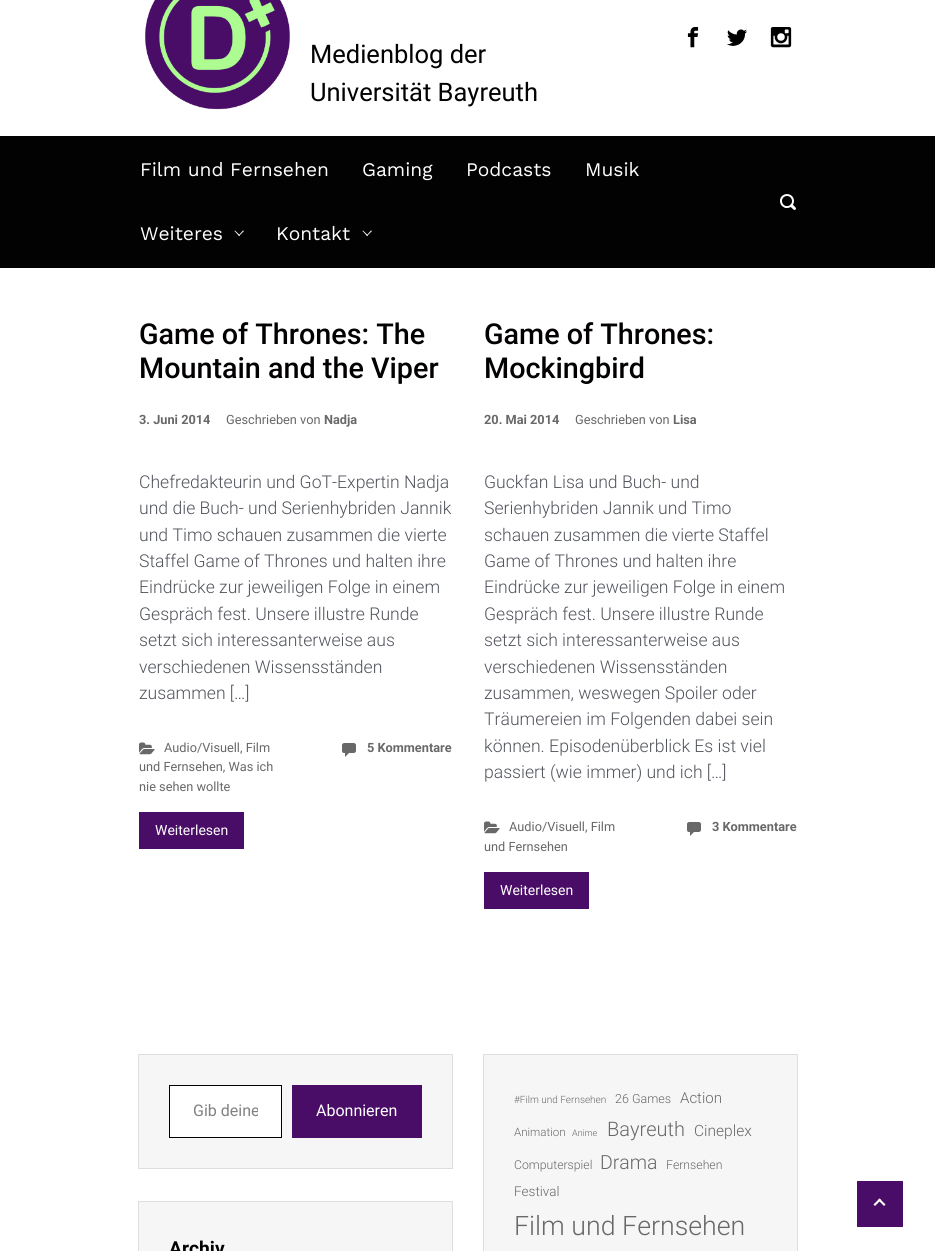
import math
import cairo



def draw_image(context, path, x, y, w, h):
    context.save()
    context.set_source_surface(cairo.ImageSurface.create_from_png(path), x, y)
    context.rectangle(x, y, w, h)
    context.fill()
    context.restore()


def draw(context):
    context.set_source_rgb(1, 1, 1)
    context.paint()
    draw_image(context, "images/1.png", 145, 0, 145, 110)
    draw_image(context, "images/2.png", 687, 27, 12, 21)
    draw_image(context, "images/3.png", 727, 29, 20, 17)
    draw_image(context, "images/4.png", 770, 27, 22, 21)
    context.set_source_rgb(2 / 255, 2 / 255, 2 / 255)
    context.rectangle(0, 136, 935, 132)
    context.fill()
    context.set_source_rgb(1, 1, 1)
    context.new_path()
    context.move_to(243, 230.5)
    context.line_to(244, 231)
    context.line_to(239, 236)
    context.line_to(238.5, 235.5)
    context.close_path()
    context.fill()
    context.new_path()
    context.move_to(235, 230.5)
    context.line_to(240, 235.5)
    context.line_to(239, 236)
    context.line_to(234.5, 231)
    context.close_path()
    context.fill()
    context.new_path()
    context.move_to(371, 230.5)
    context.line_to(372, 231)
    context.line_to(367, 236)
    context.line_to(366.5, 235.5)
    context.close_path()
    context.fill()
    context.new_path()
    context.move_to(363, 230.5)
    context.line_to(368, 235.5)
    context.line_to(367, 236)
    context.line_to(362.5, 231)
    context.close_path()
    context.fill()
    draw_image(context, "images/5.png", 780, 194, 16, 16)
    draw_image(context, "images/6.png", 139, 742, 16, 13)
    draw_image(context, "images/7.png", 342, 743, 14, 14)
    context.set_source_rgb(74 / 255, 13 / 255, 103 / 255)
    context.rectangle(139, 812, 105, 37)
    context.fill()
    draw_image(context, "images/6.png", 484, 821, 16, 13)
    draw_image(context, "images/7.png", 687, 822, 14, 14)
    context.rectangle(484, 872, 105, 37)
    context.fill()
    context.set_source_rgb(246 / 255, 246 / 255, 246 / 255)
    context.rectangle(138.5, 1054.5, 314, 114)
    context.fill_preserve()
    context.set_source_rgb(224 / 255, 221 / 255, 221 / 255)
    context.set_line_width(1)
    context.stroke()
    context.set_source_rgb(1, 1, 1)
    context.rectangle(169.5, 1085.5, 112, 52)
    context.fill_preserve()
    context.set_source_rgb(0, 0, 0)
    context.stroke()
    context.set_source_rgb(74 / 255, 13 / 255, 103 / 255)
    context.rectangle(292, 1085, 130, 53)
    context.fill()
    context.set_source_rgb(246 / 255, 246 / 255, 246 / 255)
    context.rectangle(138.5, 1201.5, 314, 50)
    context.fill_preserve()
    context.set_source_rgb(224 / 255, 221 / 255, 221 / 255)
    context.stroke()
    context.set_source_rgb(246 / 255, 246 / 255, 246 / 255)
    context.rectangle(483.5, 1054.5, 314, 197)
    context.fill_preserve()
    context.set_source_rgb(224 / 255, 221 / 255, 221 / 255)
    context.stroke()
    context.set_source_rgb(74 / 255, 13 / 255, 103 / 255)
    context.rectangle(857, 1181, 46, 46)
    context.fill()
    context.set_source_rgb(1, 1, 1)
    context.new_path()
    context.move_to(873.5, 1204.5)
    context.line_to(879.5, 1198.5)
    context.line_to(881, 1200)
    context.line_to(875, 1206)
    context.close_path()
    context.fill()
    context.new_path()
    context.move_to(878, 1200)
    context.line_to(879.5, 1198.5)
    context.line_to(885.5, 1204.5)
    context.line_to(884, 1206)
    context.close_path()
    context.fill()
    context.select_font_face("Roboto")
    context.set_font_size(25.5)
    context.set_source_rgb(2 / 255, 0, 0)
    context.move_to(310, 63)
    context.show_text("Medienblog der")
    context.move_to(310, 101)
    context.show_text("Universität Bayreuth")
    context.select_font_face("Work Sans")
    context.set_font_size(19.25)
    context.set_source_rgb(1, 1, 1)
    context.move_to(140, 176)
    context.show_text("Film und Fernsehen")
    context.move_to(362, 176)
    context.show_text("Gaming")
    context.move_to(466, 176)
    context.show_text("Podcasts")
    context.move_to(585, 176)
    context.show_text("Musik")
    context.move_to(140, 240)
    context.show_text("Weiteres")
    context.move_to(276, 240)
    context.show_text("Kontakt")
    context.select_font_face("Roboto Medium")
    context.set_font_size(28.75)
    context.set_source_rgb(2 / 255, 0, 0)
    context.move_to(139, 344)
    context.show_text("Game of Thrones: The")
    context.move_to(139, 378)
    context.show_text("Mountain and the Viper")
    context.select_font_face("Roboto", cairo.FontSlant.NORMAL, cairo.FontWeight.BOLD)
    context.set_font_size(12.75)
    context.set_source_rgb(104 / 255, 104 / 255, 104 / 255)
    context.move_to(139, 424)
    context.show_text("3. Juni 2014")
    context.select_font_face("Roboto")
    context.move_to(226, 424)
    context.show_text("Geschrieben von")
    context.select_font_face("Roboto", cairo.FontSlant.NORMAL, cairo.FontWeight.BOLD)
    context.move_to(324, 424)
    context.show_text("Nadja")
    context.select_font_face("Roboto Light")
    context.set_font_size(17.6)
    context.set_source_rgb(81 / 255, 84 / 255, 92 / 255)
    context.move_to(139, 488)
    context.show_text("Chefredakteurin und GoT-Expertin Nadja")
    context.move_to(139, 514)
    context.show_text("und die Buch- und Serienhybriden Jannik")
    context.move_to(139, 541)
    context.show_text("und Timo schauen zusammen die vierte")
    context.move_to(139, 567)
    context.show_text("Staffel Game of Thrones und halten ihre")
    context.move_to(139, 593)
    context.show_text("Eindrücke zur jeweiligen Folge in einem")
    context.move_to(139, 620)
    context.show_text("Gespräch fest. Unsere illustre Runde")
    context.move_to(139, 646)
    context.show_text("setzt sich interessanterweise aus")
    context.move_to(139, 673)
    context.show_text("verschiedenen Wissensständen")
    context.move_to(139, 699)
    context.show_text("zusammen […]")
    context.select_font_face("Roboto")
    context.set_font_size(12.75)
    context.set_source_rgb(104 / 255, 104 / 255, 104 / 255)
    context.move_to(164, 752)
    context.show_text("Audio/Visuell, Film")
    context.move_to(139, 771)
    context.show_text("und Fernsehen, Was ich")
    context.move_to(139, 791)
    context.show_text("nie sehen wollte")
    context.select_font_face("Roboto", cairo.FontSlant.NORMAL, cairo.FontWeight.BOLD)
    context.move_to(367, 752)
    context.show_text("5 Kommentare")
    context.select_font_face("Roboto")
    context.set_font_size(14)
    context.set_source_rgb(1, 1, 1)
    context.move_to(155, 835)
    context.show_text("Weiterlesen")
    context.select_font_face("Roboto Medium")
    context.set_font_size(28.75)
    context.set_source_rgb(2 / 255, 0, 0)
    context.move_to(484, 344)
    context.show_text("Game of Thrones:")
    context.move_to(484, 378)
    context.show_text("Mockingbird")
    context.select_font_face("Roboto", cairo.FontSlant.NORMAL, cairo.FontWeight.BOLD)
    context.set_font_size(12.75)
    context.set_source_rgb(104 / 255, 104 / 255, 104 / 255)
    context.move_to(484, 424)
    context.show_text("20. Mai 2014")
    context.select_font_face("Roboto")
    context.move_to(575, 424)
    context.show_text("Geschrieben von")
    context.select_font_face("Roboto", cairo.FontSlant.NORMAL, cairo.FontWeight.BOLD)
    context.move_to(673, 424)
    context.show_text("Lisa")
    context.select_font_face("Roboto Light")
    context.set_font_size(17.6)
    context.set_source_rgb(81 / 255, 84 / 255, 92 / 255)
    context.move_to(484, 488)
    context.show_text("Guckfan Lisa und Buch- und")
    context.move_to(484, 514)
    context.show_text("Serienhybriden Jannik und Timo")
    context.move_to(484, 541)
    context.show_text("schauen zusammen die vierte Staffel")
    context.move_to(484, 567)
    context.show_text("Game of Thrones und halten ihre")
    context.move_to(484, 593)
    context.show_text("Eindrücke zur jeweiligen Folge in einem")
    context.move_to(484, 620)
    context.show_text("Gespräch fest. Unsere illustre Runde")
    context.move_to(484, 646)
    context.show_text("setzt sich interessanterweise aus")
    context.move_to(484, 673)
    context.show_text("verschiedenen Wissensständen")
    context.move_to(484, 699)
    context.show_text("zusammen, weswegen Spoiler oder")
    context.move_to(484, 725)
    context.show_text("Träumereien im Folgenden dabei sein")
    context.move_to(484, 752)
    context.show_text("können. Episodenüberblick Es ist viel")
    context.move_to(484, 778)
    context.show_text("passiert (wie immer) und ich […]")
    context.select_font_face("Roboto")
    context.set_font_size(12.75)
    context.set_source_rgb(104 / 255, 104 / 255, 104 / 255)
    context.move_to(509, 831)
    context.show_text("Audio/Visuell, Film")
    context.move_to(484, 851)
    context.show_text("und Fernsehen")
    context.select_font_face("Roboto", cairo.FontSlant.NORMAL, cairo.FontWeight.BOLD)
    context.move_to(712, 831)
    context.show_text("3 Kommentare")
    context.select_font_face("Roboto")
    context.set_font_size(14)
    context.set_source_rgb(1, 1, 1)
    context.move_to(500, 895)
    context.show_text("Weiterlesen")
    context.save()
    context.rectangle(193, 1101, 65, 19)
    context.clip()
    context.set_font_size(16)
    context.set_source_rgb(129 / 255, 129 / 255, 129 / 255)
    context.move_to(193, 1116)
    context.show_text("Gib deine")
    context.restore()
    context.set_font_size(16)
    context.move_to(316, 1116)
    context.show_text("Abonnieren")
    context.select_font_face("Roboto", cairo.FontSlant.NORMAL, cairo.FontWeight.BOLD)
    context.set_font_size(19.25)
    context.set_source_rgb(2 / 255, 0, 0)
    context.move_to(169, 1255)
    context.show_text("Archiv")
    context.select_font_face("Roboto Light")
    context.set_font_size(10)
    context.set_source_rgb(104 / 255, 104 / 255, 104 / 255)
    context.move_to(514, 1103)
    context.show_text("#Film und Fernsehen")
    context.set_font_size(12.5)
    context.move_to(615, 1103)
    context.show_text("26 Games")
    context.set_font_size(15)
    context.move_to(680, 1103)
    context.show_text("Action")
    context.set_font_size(11.5)
    context.move_to(514, 1136)
    context.show_text("Animation")
    context.set_font_size(9)
    context.move_to(572, 1136)
    context.show_text("Anime")
    context.set_font_size(20)
    context.move_to(607, 1136)
    context.show_text("Bayreuth")
    context.set_font_size(15.5)
    context.move_to(694, 1136)
    context.show_text("Cineplex")
    context.set_font_size(12.25)
    context.move_to(514, 1169)
    context.show_text("Computerspiel")
    context.set_font_size(19.5)
    context.move_to(600, 1169)
    context.show_text("Drama")
    context.set_font_size(12.25)
    context.move_to(666, 1169)
    context.show_text("Fernsehen")
    context.set_font_size(13.5)
    context.move_to(514, 1196)
    context.show_text("Festival")
    context.set_font_size(26.75)
    context.move_to(514, 1235)
    context.show_text("Film und Fernsehen")


surface = cairo.ImageSurface(cairo.Format.RGB24, 935, 1251)
context = cairo.Context(surface)
options = cairo.FontOptions()
options.set_hint_metrics(cairo.HintMetrics.OFF)
options.set_hint_style(cairo.HintStyle.NONE)
context.set_font_options(options)
context.set_miter_limit(4)
draw(context)
surface.write_to_png("out.png")
